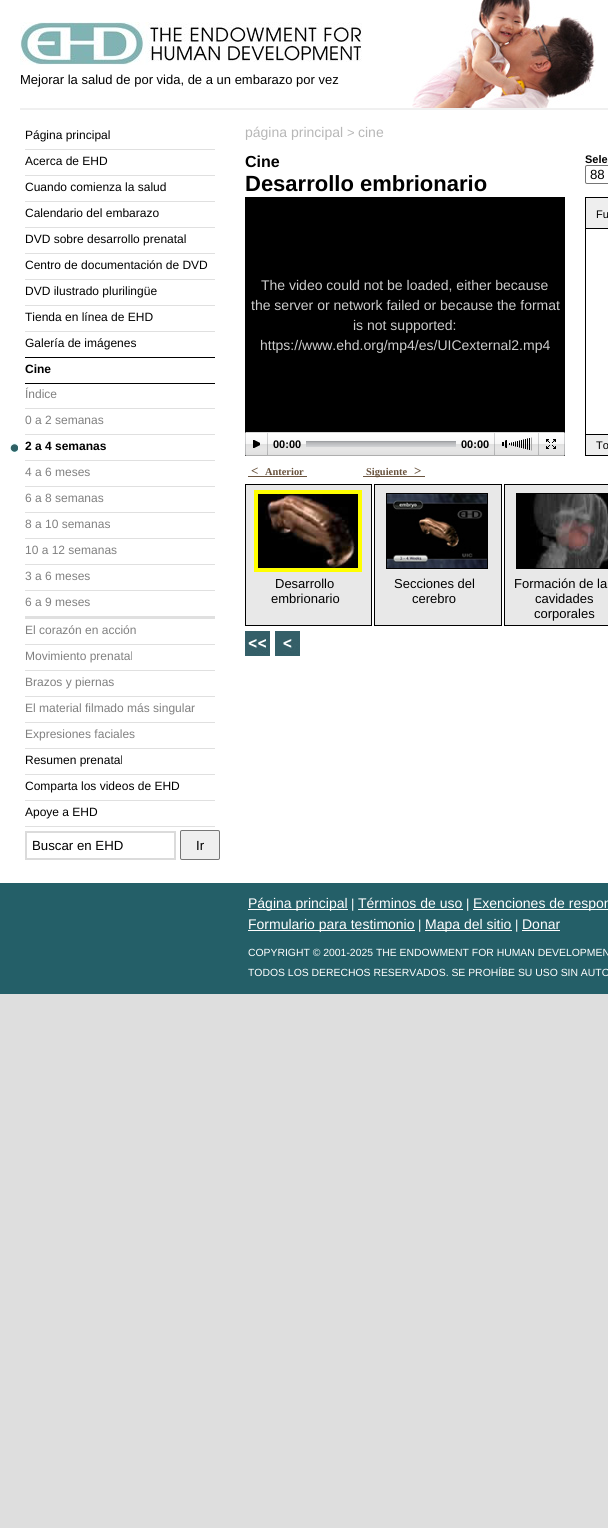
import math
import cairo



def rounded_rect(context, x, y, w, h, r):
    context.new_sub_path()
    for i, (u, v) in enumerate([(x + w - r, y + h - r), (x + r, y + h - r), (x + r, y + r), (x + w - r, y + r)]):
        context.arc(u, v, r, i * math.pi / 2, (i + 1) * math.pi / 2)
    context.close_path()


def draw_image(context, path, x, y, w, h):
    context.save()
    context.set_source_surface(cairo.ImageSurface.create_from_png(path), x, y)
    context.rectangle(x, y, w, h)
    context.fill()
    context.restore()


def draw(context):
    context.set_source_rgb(222 / 255, 222 / 255, 222 / 255)
    context.paint()
    context.set_source_rgb(1, 1, 1)
    context.rectangle(0, 0, 608, 883)
    context.fill()
    draw_image(context, "images/1.png", 20, 22, 342, 43)
    draw_image(context, "images/2.png", 412, 0, 184, 108)
    context.set_source_rgb(240 / 255, 240 / 255, 240 / 255)
    context.rectangle(20, 108, 588, 2)
    context.fill()
    context.set_source_rgb(224 / 255, 224 / 255, 224 / 255)
    context.rectangle(25, 149, 190, 1)
    context.fill()
    context.rectangle(25, 175, 190, 1)
    context.fill()
    context.rectangle(25, 201, 190, 1)
    context.fill()
    context.rectangle(25, 227, 190, 1)
    context.fill()
    context.rectangle(25, 253, 190, 1)
    context.fill()
    context.rectangle(25, 279, 190, 1)
    context.fill()
    context.rectangle(25, 305, 190, 1)
    context.fill()
    context.rectangle(25, 331, 190, 1)
    context.fill()
    context.rectangle(25, 748, 190, 1)
    context.fill()
    context.set_source_rgb(0, 0, 0)
    context.rectangle(25, 357, 190, 1)
    context.fill()
    context.rectangle(25, 383, 190, 1)
    context.fill()
    context.set_source_rgb(224 / 255, 224 / 255, 224 / 255)
    context.rectangle(25, 408, 190, 1)
    context.fill()
    context.rectangle(25, 434, 190, 1)
    context.fill()
    context.rectangle(25, 460, 190, 1)
    context.fill()
    draw_image(context, "images/3.png", 10, 443, 8, 9)
    context.rectangle(25, 486, 190, 1)
    context.fill()
    context.rectangle(25, 512, 190, 1)
    context.fill()
    context.rectangle(25, 538, 190, 1)
    context.fill()
    context.rectangle(25, 564, 190, 1)
    context.fill()
    context.rectangle(25, 590, 190, 1)
    context.fill()
    context.rectangle(25, 644, 190, 1)
    context.fill()
    context.rectangle(25, 616, 190, 3)
    context.fill()
    context.rectangle(25, 670, 190, 1)
    context.fill()
    context.rectangle(25, 696, 190, 1)
    context.fill()
    context.rectangle(25, 722, 190, 1)
    context.fill()
    context.rectangle(25, 774, 190, 1)
    context.fill()
    context.rectangle(25, 800, 190, 1)
    context.fill()
    context.rectangle(25, 826, 190, 1)
    context.fill()
    context.rectangle(26, 832, 149, 27)
    context.set_source_rgb(219 / 255, 219 / 255, 219 / 255)
    context.stroke()
    context.set_source_rgb(239 / 255, 239 / 255, 239 / 255)
    rounded_rect(context, 180.5, 830.5, 39, 29, 1.5)
    context.fill_preserve()
    context.set_source_rgb(118 / 255, 118 / 255, 118 / 255)
    context.set_line_width(1)
    context.stroke()
    rounded_rect(context, 585.5, 165.5, 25, 18, 1.5)
    context.stroke()
    context.set_source_rgb(0, 0, 0)
    context.rectangle(245, 197, 320, 259)
    context.fill()
    draw_image(context, "images/4.png", 245, 432, 1, 24)
    draw_image(context, "images/5.png", 246, 432, 318, 24)
    draw_image(context, "images/4.png", 564, 432, 1, 24)
    draw_image(context, "images/6.png", 253, 440, 7, 8)
    draw_image(context, "images/7.png", 267, 433, 1, 22)
    draw_image(context, "images/8.png", 306, 441, 150, 6)
    draw_image(context, "images/7.png", 494, 433, 1, 22)
    draw_image(context, "images/9.png", 502, 440, 5, 8)
    draw_image(context, "images/10.png", 511, 437, 21, 14)
    draw_image(context, "images/11.png", 509, 438, 21, 12)
    draw_image(context, "images/7.png", 538, 433, 1, 22)
    draw_image(context, "images/12.png", 546, 439, 10, 10)
    context.set_source_rgb(238 / 255, 238 / 255, 238 / 255)
    context.rectangle(586, 198, 22, 30)
    context.fill()
    context.set_source_rgb(0, 0, 0)
    context.rectangle(585, 197, 23, 1)
    context.fill()
    context.rectangle(585, 197, 1, 31)
    context.fill()
    context.rectangle(585.5, 228.5, 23, 206)
    context.stroke()
    context.set_source_rgb(238 / 255, 238 / 255, 238 / 255)
    context.rectangle(586, 435, 22, 20)
    context.fill()
    context.set_source_rgb(0, 0, 0)
    context.rectangle(585, 455, 23, 1)
    context.fill()
    context.rectangle(585, 435, 1, 21)
    context.fill()
    context.set_source_rgb(105 / 255, 83 / 255, 62 / 255)
    context.rectangle(248, 476, 59, 1)
    context.fill()
    context.rectangle(363, 476, 44, 1)
    context.fill()
    context.rectangle(407, 476, 18, 1)
    context.fill()
    context.set_source_rgb(232 / 255, 232 / 255, 232 / 255)
    context.rectangle(246, 485, 125, 140)
    context.fill()
    context.set_source_rgb(0, 0, 0)
    context.rectangle(371, 484, 1, 142)
    context.fill()
    context.rectangle(245, 484, 127, 1)
    context.fill()
    context.rectangle(245, 625, 127, 1)
    context.fill()
    context.rectangle(245, 484, 1, 142)
    context.fill()
    context.rectangle(256, 492, 104, 78)
    context.set_source_rgb(1, 1, 0)
    context.set_line_width(4)
    context.stroke()
    draw_image(context, "images/13.png", 258, 494, 100, 74)
    context.set_source_rgb(232 / 255, 232 / 255, 232 / 255)
    context.rectangle(375, 485, 126, 140)
    context.fill()
    context.set_source_rgb(0, 0, 0)
    context.rectangle(501, 484, 1, 142)
    context.fill()
    context.rectangle(374, 484, 128, 1)
    context.fill()
    context.rectangle(374, 625, 128, 1)
    context.fill()
    context.rectangle(374, 484, 1, 142)
    context.fill()
    context.rectangle(386.5, 493.5, 101, 75)
    context.set_line_width(1)
    context.stroke()
    draw_image(context, "images/14.png", 387, 494, 100, 74)
    context.set_source_rgb(232 / 255, 232 / 255, 232 / 255)
    context.rectangle(505, 485, 103, 140)
    context.fill()
    context.set_source_rgb(0, 0, 0)
    context.rectangle(504, 484, 104, 1)
    context.fill()
    context.rectangle(504, 625, 104, 1)
    context.fill()
    context.rectangle(504, 484, 1, 142)
    context.fill()
    context.rectangle(516.5, 493.5, 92, 75)
    context.stroke()
    draw_image(context, "images/15.png", 517, 494, 91, 74)
    draw_image(context, "images/16.png", 245, 631, 25, 25)
    draw_image(context, "images/17.png", 275, 631, 25, 25)
    context.set_source_rgb(36 / 255, 95 / 255, 104 / 255)
    context.rectangle(0, 883, 608, 111)
    context.fill()
    context.set_source_rgb(1, 1, 1)
    context.rectangle(248, 909, 100, 1)
    context.fill()
    context.rectangle(358, 909, 105, 1)
    context.fill()
    context.rectangle(473, 909, 135, 1)
    context.fill()
    context.rectangle(248, 930, 167, 1)
    context.fill()
    context.rectangle(425, 930, 87, 1)
    context.fill()
    context.rectangle(522, 930, 38, 1)
    context.fill()
    context.select_font_face("Liberation Sans")
    context.set_font_size(13)
    context.set_source_rgb(0, 0, 0)
    context.move_to(20, 84)
    context.show_text("Mejorar la salud de por vida, de a un embarazo por vez")
    context.set_font_size(12)
    context.move_to(25, 139)
    context.show_text("Página principal")
    context.move_to(25, 165)
    context.show_text("Acerca de EHD")
    context.move_to(25, 191)
    context.show_text("Cuando comienza la salud")
    context.move_to(25, 217)
    context.show_text("Calendario del embarazo")
    context.move_to(25, 243)
    context.show_text("DVD sobre desarrollo prenatal")
    context.move_to(25, 269)
    context.show_text("Centro de documentación de DVD")
    context.move_to(25, 295)
    context.show_text("DVD ilustrado plurilingüe")
    context.move_to(25, 321)
    context.show_text("Tienda en línea de EHD")
    context.move_to(25, 347)
    context.show_text("Galería de imágenes")
    context.select_font_face("Liberation Sans", cairo.FontSlant.NORMAL, cairo.FontWeight.BOLD)
    context.move_to(25, 373)
    context.show_text("Cine")
    context.select_font_face("Liberation Sans")
    context.set_source_rgb(128 / 255, 128 / 255, 128 / 255)
    context.move_to(25, 398)
    context.show_text("Índice")
    context.move_to(25, 424)
    context.show_text("0 a 2 semanas")
    context.select_font_face("Liberation Sans", cairo.FontSlant.NORMAL, cairo.FontWeight.BOLD)
    context.set_source_rgb(0, 0, 0)
    context.move_to(25, 450)
    context.show_text("2 a 4 semanas")
    context.select_font_face("Liberation Sans")
    context.set_source_rgb(128 / 255, 128 / 255, 128 / 255)
    context.move_to(25, 476)
    context.show_text("4 a 6 meses")
    context.move_to(25, 502)
    context.show_text("6 a 8 semanas")
    context.move_to(25, 528)
    context.show_text("8 a 10 semanas")
    context.move_to(25, 554)
    context.show_text("10 a 12 semanas")
    context.move_to(25, 580)
    context.show_text("3 a 6 meses")
    context.move_to(25, 606)
    context.show_text("6 a 9 meses")
    context.move_to(25, 634)
    context.show_text("El corazón en acción")
    context.move_to(25, 660)
    context.show_text("Movimiento prenatal")
    context.move_to(25, 686)
    context.show_text("Brazos y piernas")
    context.move_to(25, 712)
    context.show_text("El material filmado más singular")
    context.move_to(25, 738)
    context.show_text("Expresiones faciales")
    context.set_source_rgb(0, 0, 0)
    context.move_to(25, 764)
    context.show_text("Resumen prenatal")
    context.move_to(25, 790)
    context.show_text("Comparta los videos de EHD")
    context.move_to(25, 816)
    context.show_text("Apoye a EHD")
    context.set_font_size(13.25)
    context.move_to(32, 850)
    context.show_text("Buscar en EHD")
    context.move_to(196, 850)
    context.show_text("Ir")
    context.set_font_size(14)
    context.set_source_rgb(183 / 255, 183 / 255, 183 / 255)
    context.move_to(245, 137)
    context.show_text("página principal")
    context.set_font_size(13)
    context.move_to(347, 137)
    context.show_text(">")
    context.set_font_size(14)
    context.move_to(358, 137)
    context.show_text("cine")
    context.select_font_face("Liberation Sans", cairo.FontSlant.NORMAL, cairo.FontWeight.BOLD)
    context.set_font_size(16)
    context.set_source_rgb(0, 0, 0)
    context.move_to(245, 167)
    context.show_text("Cine")
    context.set_font_size(22)
    context.move_to(245, 191)
    context.show_text("Desarrollo embrionario")
    context.set_font_size(11)
    context.move_to(585, 163)
    context.show_text("Sele")
    context.select_font_face("Liberation Sans")
    context.set_font_size(13.25)
    context.move_to(590, 179)
    context.show_text("88")
    context.set_font_size(14)
    context.set_source_rgb(204 / 255, 204 / 255, 204 / 255)
    context.move_to(261, 290)
    context.show_text("The video could not be loaded, either because")
    context.move_to(251, 310)
    context.show_text("the server or network failed or because the format")
    context.move_to(353, 330)
    context.show_text("is not supported:")
    context.move_to(260, 350)
    context.show_text("https://www.ehd.org/mp4/es/UICexternal2.mp4")
    context.select_font_face("Liberation Sans", cairo.FontSlant.NORMAL, cairo.FontWeight.BOLD)
    context.set_font_size(11)
    context.set_source_rgb(0, 0, 0)
    context.move_to(273, 448)
    context.show_text("00:00")
    context.move_to(461, 448)
    context.show_text("00:00")
    context.select_font_face("Liberation Sans")
    context.move_to(596, 218)
    context.show_text("Fu")
    context.move_to(596, 449)
    context.show_text("To")
    context.select_font_face("Liberation Serif", cairo.FontSlant.NORMAL, cairo.FontWeight.BOLD)
    context.set_font_size(13)
    context.set_source_rgb(105 / 255, 83 / 255, 62 / 255)
    context.move_to(251, 475)
    context.show_text("<")
    context.set_font_size(10.4)
    context.move_to(265, 475)
    context.show_text("Anterior")
    context.move_to(366, 475)
    context.show_text("Siguiente")
    context.set_font_size(13)
    context.move_to(414, 475)
    context.show_text(">")
    context.select_font_face("Liberation Sans")
    context.set_source_rgb(0, 0, 0)
    context.move_to(275, 588)
    context.show_text("Desarrollo")
    context.move_to(271, 603)
    context.show_text("embrionario")
    context.move_to(394, 588)
    context.show_text("Secciones del")
    context.move_to(412, 603)
    context.show_text("cerebro")
    context.move_to(514, 588)
    context.show_text("Formación de la")
    context.move_to(535, 603)
    context.show_text("cavidades")
    context.move_to(534, 618)
    context.show_text("corporales")
    context.set_font_size(14)
    context.set_source_rgb(1, 1, 1)
    context.move_to(248, 908)
    context.show_text("Página principal")
    context.set_font_size(13)
    context.move_to(351, 908)
    context.show_text("|")
    context.set_font_size(14)
    context.move_to(358, 908)
    context.show_text("Términos de uso")
    context.set_font_size(13)
    context.move_to(466, 908)
    context.show_text("|")
    context.set_font_size(14)
    context.move_to(473, 908)
    context.show_text("Exenciones de respon")
    context.move_to(248, 929)
    context.show_text("Formulario para testimonio")
    context.set_font_size(13)
    context.move_to(418, 929)
    context.show_text("|")
    context.set_font_size(14)
    context.move_to(425, 929)
    context.show_text("Mapa del sitio")
    context.set_font_size(13)
    context.move_to(515, 929)
    context.show_text("|")
    context.set_font_size(14)
    context.move_to(522, 929)
    context.show_text("Donar")
    context.set_font_size(10.4)
    context.move_to(248, 956)
    context.show_text("COPYRIGHT © 2001-2025 THE ENDOWMENT FOR HUMAN DEVELOPMEN")
    context.move_to(248, 976)
    context.show_text("TODOS LOS DERECHOS RESERVADOS. SE PROHÍBE SU USO SIN AUTO")


surface = cairo.ImageSurface(cairo.Format.RGB24, 608, 1528)
context = cairo.Context(surface)
options = cairo.FontOptions()
options.set_hint_metrics(cairo.HintMetrics.OFF)
options.set_hint_style(cairo.HintStyle.NONE)
context.set_font_options(options)
context.set_miter_limit(4)
draw(context)
surface.write_to_png("out.png")
